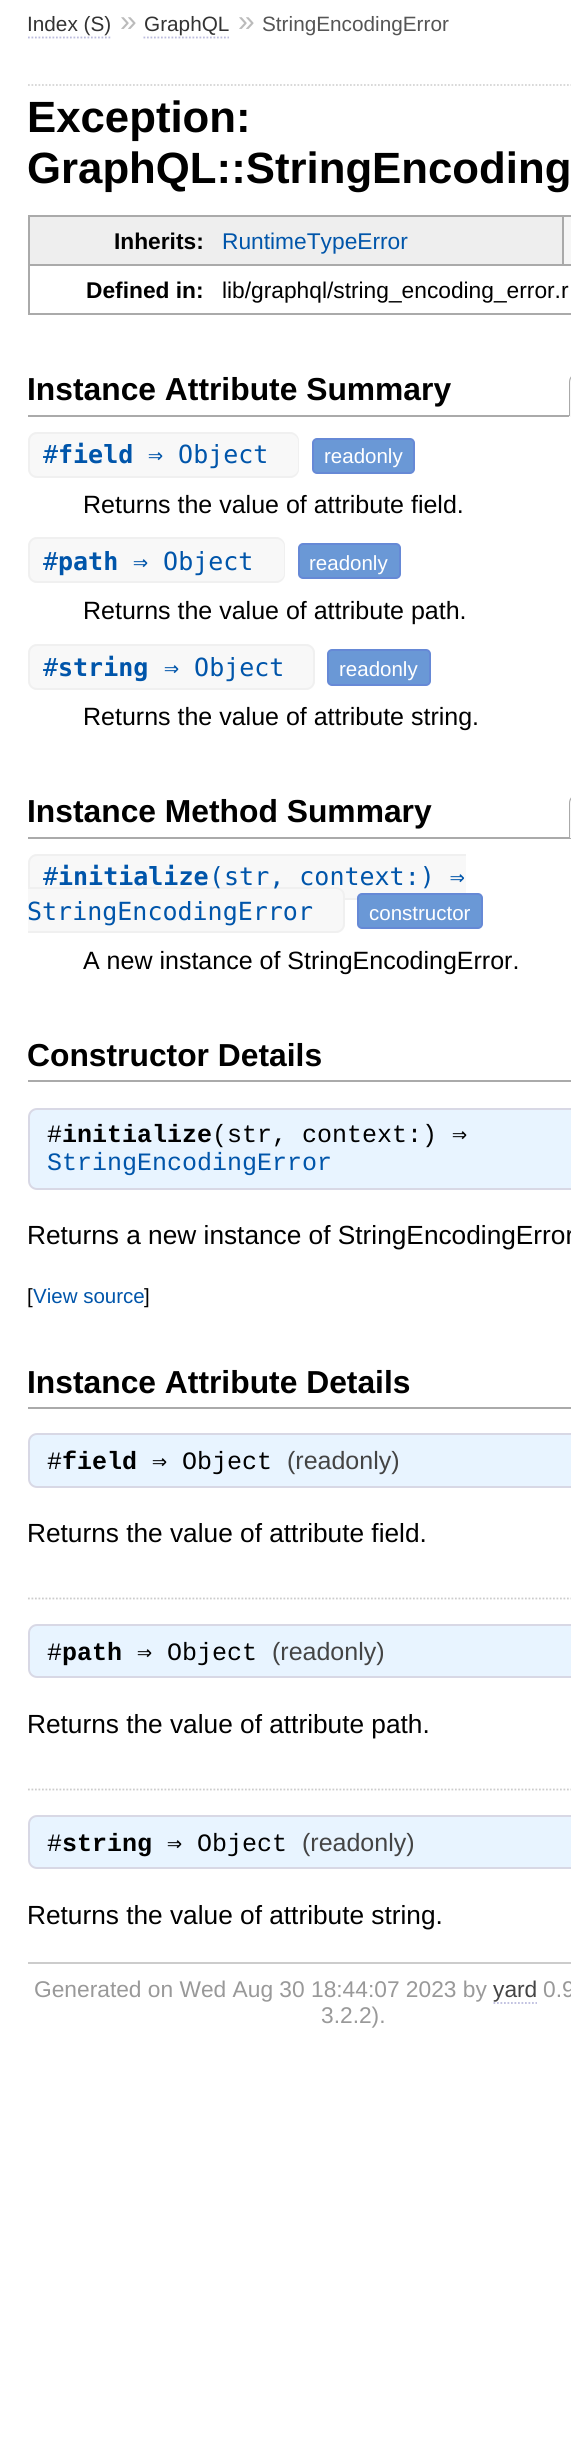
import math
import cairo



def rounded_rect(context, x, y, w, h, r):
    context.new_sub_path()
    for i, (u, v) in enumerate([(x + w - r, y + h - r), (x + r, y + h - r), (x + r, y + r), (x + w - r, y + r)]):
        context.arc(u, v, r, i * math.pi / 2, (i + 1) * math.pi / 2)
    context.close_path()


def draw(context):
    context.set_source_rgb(1, 1, 1)
    context.paint()
    context.new_path()
    context.move_to(28, 37.5)
    context.line_to(112, 37.5)
    context.set_source_rgb(187 / 255, 187 / 255, 221 / 255)
    context.set_line_width(1.8)
    context.set_dash([1.75, 1.75])
    context.stroke()
    context.new_path()
    context.move_to(143.5, 37.5)
    context.line_to(229, 37.5)
    context.stroke()
    context.new_path()
    context.move_to(28, 85)
    context.line_to(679, 85)
    context.set_source_rgb(213 / 255, 213 / 255, 213 / 255)
    context.stroke()
    context.set_source_rgb(238 / 255, 238 / 255, 238 / 255)
    context.rectangle(30, 217, 532, 47)
    context.fill()
    context.set_source_rgb(170 / 255, 170 / 255, 170 / 255)
    context.rectangle(28, 215, 543, 2)
    context.fill()
    context.rectangle(28, 215, 2, 49)
    context.fill()
    context.set_source_rgb(246 / 255, 246 / 255, 246 / 255)
    context.rectangle(564, 217, 7, 47)
    context.fill()
    context.set_source_rgb(170 / 255, 170 / 255, 170 / 255)
    context.rectangle(562, 217, 2, 47)
    context.fill()
    context.rectangle(28, 264, 543, 2)
    context.fill()
    context.rectangle(28, 313, 543, 2)
    context.fill()
    context.rectangle(28, 264, 2, 51)
    context.fill()
    context.rectangle(28, 415, 543, 2)
    context.fill()
    context.set_source_rgb(248 / 255, 248 / 255, 248 / 255)
    context.new_path()
    context.move_to(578, 373)
    context.line_to(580, 373)
    context.line_to(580, 417)
    context.line_to(569, 417)
    context.line_to(569, 382)
    context.curve_to(569, 377, 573, 373, 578, 373)
    context.close_path()
    context.fill()
    context.set_source_rgb(170 / 255, 170 / 255, 170 / 255)
    context.set_fill_rule(cairo.FillRule.EVEN_ODD)
    context.new_path()
    context.move_to(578, 373)
    context.line_to(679, 373)
    context.line_to(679, 416)
    context.line_to(569, 416)
    context.line_to(569, 382)
    context.curve_to(569, 377, 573, 373, 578, 373)
    context.close_path()
    context.move_to(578, 374)
    context.line_to(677, 374)
    context.line_to(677, 416)
    context.line_to(570, 416)
    context.line_to(570, 382)
    context.curve_to(570, 378, 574, 374, 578, 374)
    context.close_path()
    context.fill()
    context.set_source_rgb(248 / 255, 248 / 255, 248 / 255)
    context.new_path()
    context.move_to(37, 432)
    context.line_to(58, 432)
    context.line_to(58, 478)
    context.line_to(37, 478)
    context.curve_to(32, 478, 28, 474, 28, 469)
    context.line_to(28, 441)
    context.curve_to(28, 436, 32, 432, 37, 432)
    context.close_path()
    context.fill()
    context.set_source_rgb(240 / 255, 240 / 255, 240 / 255)
    context.new_path()
    context.move_to(37, 432)
    context.line_to(58, 432)
    context.line_to(58, 478)
    context.line_to(37, 478)
    context.curve_to(32, 478, 28, 474, 28, 469)
    context.line_to(28, 441)
    context.curve_to(28, 436, 32, 432, 37, 432)
    context.close_path()
    context.move_to(37, 434)
    context.line_to(58, 434)
    context.line_to(58, 476)
    context.line_to(37, 476)
    context.curve_to(33, 476, 30, 473, 30, 469)
    context.line_to(30, 441)
    context.curve_to(30, 437, 33, 434, 37, 434)
    context.close_path()
    context.fill()
    context.set_source_rgb(248 / 255, 248 / 255, 248 / 255)
    context.rectangle(58, 434, 75, 42)
    context.fill()
    context.set_source_rgb(240 / 255, 240 / 255, 240 / 255)
    context.rectangle(58, 476, 75, 2)
    context.fill()
    context.rectangle(58, 432, 75, 2)
    context.fill()
    context.set_source_rgb(248 / 255, 248 / 255, 248 / 255)
    context.new_path()
    context.move_to(133, 432)
    context.line_to(290, 432)
    context.curve_to(295, 432, 299, 436, 299, 441)
    context.line_to(299, 469)
    context.curve_to(299, 474, 295, 478, 290, 478)
    context.line_to(133, 478)
    context.close_path()
    context.fill()
    context.set_source_rgb(240 / 255, 240 / 255, 240 / 255)
    context.new_path()
    context.move_to(133, 432)
    context.line_to(290, 432)
    context.curve_to(295, 432, 299, 436, 299, 441)
    context.line_to(299, 469)
    context.curve_to(299, 474, 295, 478, 290, 478)
    context.line_to(133, 478)
    context.close_path()
    context.move_to(133, 434)
    context.line_to(290, 434)
    context.curve_to(294, 434, 298, 437, 298, 441)
    context.line_to(298, 469)
    context.curve_to(298, 473, 294, 476, 290, 476)
    context.line_to(133, 476)
    context.close_path()
    context.fill()
    context.set_source_rgb(106 / 255, 152 / 255, 214 / 255)
    rounded_rect(context, 313, 439, 101, 34, 4)
    context.fill_preserve()
    context.set_source_rgb(102 / 255, 137 / 255, 214 / 255)
    context.set_line_width(2)
    context.set_dash([])
    context.stroke()
    context.set_source_rgb(248 / 255, 248 / 255, 248 / 255)
    context.new_path()
    context.move_to(37, 537)
    context.line_to(58, 537)
    context.line_to(58, 583)
    context.line_to(37, 583)
    context.curve_to(32, 583, 28, 579, 28, 574)
    context.line_to(28, 546)
    context.curve_to(28, 541, 32, 537, 37, 537)
    context.close_path()
    context.fill()
    context.set_source_rgb(240 / 255, 240 / 255, 240 / 255)
    context.new_path()
    context.move_to(37, 537)
    context.line_to(58, 537)
    context.line_to(58, 583)
    context.line_to(37, 583)
    context.curve_to(32, 583, 28, 579, 28, 574)
    context.line_to(28, 546)
    context.curve_to(28, 541, 32, 537, 37, 537)
    context.close_path()
    context.move_to(37, 539)
    context.line_to(58, 539)
    context.line_to(58, 581)
    context.line_to(37, 581)
    context.curve_to(33, 581, 30, 578, 30, 574)
    context.line_to(30, 546)
    context.curve_to(30, 542, 33, 539, 37, 539)
    context.close_path()
    context.fill()
    context.set_source_rgb(248 / 255, 248 / 255, 248 / 255)
    context.rectangle(58, 539, 61, 42)
    context.fill()
    context.set_source_rgb(240 / 255, 240 / 255, 240 / 255)
    context.rectangle(58, 537, 61, 2)
    context.fill()
    context.rectangle(58, 581, 61, 2)
    context.fill()
    context.set_source_rgb(248 / 255, 248 / 255, 248 / 255)
    context.new_path()
    context.move_to(119, 537)
    context.line_to(276, 537)
    context.curve_to(281, 537, 285, 541, 285, 546)
    context.line_to(285, 574)
    context.curve_to(285, 579, 281, 583, 276, 583)
    context.line_to(119, 583)
    context.close_path()
    context.fill()
    context.set_source_rgb(240 / 255, 240 / 255, 240 / 255)
    context.new_path()
    context.move_to(119, 537)
    context.line_to(276, 537)
    context.curve_to(281, 537, 285, 541, 285, 546)
    context.line_to(285, 574)
    context.curve_to(285, 579, 281, 583, 276, 583)
    context.line_to(119, 583)
    context.close_path()
    context.move_to(119, 539)
    context.line_to(276, 539)
    context.curve_to(280, 539, 284, 542, 284, 546)
    context.line_to(284, 574)
    context.curve_to(284, 578, 280, 581, 276, 581)
    context.line_to(119, 581)
    context.close_path()
    context.fill()
    context.set_source_rgb(106 / 255, 152 / 255, 214 / 255)
    rounded_rect(context, 299, 544, 101, 34, 4)
    context.fill_preserve()
    context.set_source_rgb(102 / 255, 137 / 255, 214 / 255)
    context.stroke()
    context.set_source_rgb(248 / 255, 248 / 255, 248 / 255)
    context.new_path()
    context.move_to(37, 644)
    context.line_to(58, 644)
    context.line_to(58, 690)
    context.line_to(37, 690)
    context.curve_to(32, 690, 28, 686, 28, 681)
    context.line_to(28, 653)
    context.curve_to(28, 648, 32, 644, 37, 644)
    context.close_path()
    context.fill()
    context.set_source_rgb(240 / 255, 240 / 255, 240 / 255)
    context.new_path()
    context.move_to(37, 644)
    context.line_to(58, 644)
    context.line_to(58, 690)
    context.line_to(37, 690)
    context.curve_to(32, 690, 28, 686, 28, 681)
    context.line_to(28, 653)
    context.curve_to(28, 648, 32, 644, 37, 644)
    context.close_path()
    context.move_to(37, 646)
    context.line_to(58, 646)
    context.line_to(58, 688)
    context.line_to(37, 688)
    context.curve_to(33, 688, 30, 685, 30, 681)
    context.line_to(30, 653)
    context.curve_to(30, 649, 33, 646, 37, 646)
    context.close_path()
    context.fill()
    context.set_source_rgb(248 / 255, 248 / 255, 248 / 255)
    context.rectangle(58, 646, 91, 42)
    context.fill()
    context.set_source_rgb(240 / 255, 240 / 255, 240 / 255)
    context.rectangle(58, 644, 91, 2)
    context.fill()
    context.rectangle(58, 688, 91, 2)
    context.fill()
    context.set_source_rgb(248 / 255, 248 / 255, 248 / 255)
    context.new_path()
    context.move_to(149, 644)
    context.line_to(306, 644)
    context.curve_to(311, 644, 315, 648, 315, 653)
    context.line_to(315, 681)
    context.curve_to(315, 686, 311, 690, 306, 690)
    context.line_to(149, 690)
    context.close_path()
    context.fill()
    context.set_source_rgb(240 / 255, 240 / 255, 240 / 255)
    context.new_path()
    context.move_to(149, 644)
    context.line_to(306, 644)
    context.curve_to(311, 644, 315, 648, 315, 653)
    context.line_to(315, 681)
    context.curve_to(315, 686, 311, 690, 306, 690)
    context.line_to(149, 690)
    context.close_path()
    context.move_to(149, 646)
    context.line_to(306, 646)
    context.curve_to(310, 646, 313, 649, 313, 653)
    context.line_to(313, 681)
    context.curve_to(313, 685, 310, 688, 306, 688)
    context.line_to(149, 688)
    context.close_path()
    context.fill()
    context.set_source_rgb(106 / 255, 152 / 255, 214 / 255)
    rounded_rect(context, 328, 650, 102, 35, 4)
    context.fill_preserve()
    context.set_source_rgb(102 / 255, 137 / 255, 214 / 255)
    context.stroke()
    context.set_source_rgb(170 / 255, 170 / 255, 170 / 255)
    context.rectangle(28, 837, 543, 2)
    context.fill()
    context.set_source_rgb(248 / 255, 248 / 255, 248 / 255)
    context.new_path()
    context.move_to(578, 795)
    context.line_to(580, 795)
    context.line_to(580, 838)
    context.line_to(569, 838)
    context.line_to(569, 804)
    context.curve_to(569, 799, 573, 795, 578, 795)
    context.close_path()
    context.fill()
    context.set_source_rgb(170 / 255, 170 / 255, 170 / 255)
    context.new_path()
    context.move_to(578, 794)
    context.line_to(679, 794)
    context.line_to(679, 838)
    context.line_to(569, 838)
    context.line_to(569, 803)
    context.curve_to(569, 798, 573, 794, 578, 794)
    context.close_path()
    context.move_to(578, 796)
    context.line_to(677, 796)
    context.line_to(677, 838)
    context.line_to(570, 838)
    context.line_to(570, 803)
    context.curve_to(570, 799, 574, 796, 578, 796)
    context.close_path()
    context.fill()
    context.set_source_rgb(248 / 255, 248 / 255, 248 / 255)
    context.new_path()
    context.move_to(37, 854)
    context.line_to(58, 854)
    context.line_to(58, 900)
    context.line_to(37, 900)
    context.curve_to(32, 900, 28, 896, 28, 891)
    context.line_to(28, 863)
    context.curve_to(28, 858, 32, 854, 37, 854)
    context.close_path()
    context.fill()
    context.set_source_rgb(240 / 255, 240 / 255, 240 / 255)
    context.new_path()
    context.move_to(37, 854)
    context.line_to(58, 854)
    context.line_to(58, 900)
    context.line_to(37, 900)
    context.curve_to(32, 900, 28, 896, 28, 891)
    context.line_to(28, 863)
    context.curve_to(28, 858, 32, 854, 37, 854)
    context.close_path()
    context.move_to(37, 856)
    context.line_to(58, 856)
    context.line_to(58, 898)
    context.line_to(37, 898)
    context.curve_to(33, 898, 30, 895, 30, 891)
    context.line_to(30, 863)
    context.curve_to(30, 859, 33, 856, 37, 856)
    context.close_path()
    context.fill()
    context.set_source_rgb(248 / 255, 248 / 255, 248 / 255)
    context.rectangle(58, 856, 150, 31)
    context.fill()
    context.set_source_rgb(240 / 255, 240 / 255, 240 / 255)
    context.rectangle(58, 854, 408, 2)
    context.fill()
    context.set_source_rgb(248 / 255, 248 / 255, 248 / 255)
    context.rectangle(208, 856, 258, 42)
    context.fill()
    context.set_source_rgb(240 / 255, 240 / 255, 240 / 255)
    context.rectangle(345, 898, 12, 2)
    context.fill()
    context.set_source_rgb(248 / 255, 248 / 255, 248 / 255)
    context.new_path()
    context.move_to(28, 887)
    context.line_to(336, 887)
    context.curve_to(341, 887, 345, 891, 345, 896)
    context.line_to(345, 924)
    context.curve_to(345, 929, 341, 933, 336, 933)
    context.line_to(28, 933)
    context.close_path()
    context.fill()
    context.set_source_rgb(240 / 255, 240 / 255, 240 / 255)
    context.new_path()
    context.move_to(28, 887)
    context.line_to(336, 887)
    context.curve_to(341, 887, 345, 891, 345, 896)
    context.line_to(345, 924)
    context.curve_to(345, 929, 341, 933, 336, 933)
    context.line_to(28, 933)
    context.close_path()
    context.move_to(28, 889)
    context.line_to(336, 889)
    context.curve_to(340, 889, 343, 892, 343, 896)
    context.line_to(343, 924)
    context.curve_to(343, 928, 340, 931, 336, 931)
    context.line_to(28, 931)
    context.close_path()
    context.fill()
    context.set_source_rgb(106 / 255, 152 / 255, 214 / 255)
    rounded_rect(context, 358, 894, 124, 34, 4)
    context.fill_preserve()
    context.set_source_rgb(102 / 255, 137 / 255, 214 / 255)
    context.stroke()
    context.set_source_rgb(170 / 255, 170 / 255, 170 / 255)
    context.rectangle(28, 1080, 543, 2)
    context.fill()
    context.set_source_rgb(232 / 255, 244 / 255, 1)
    rounded_rect(context, 29, 1109, 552, 80, 8)
    context.fill_preserve()
    context.set_source_rgb(216 / 255, 216 / 255, 229 / 255)
    context.stroke()
    context.set_source_rgb(170 / 255, 170 / 255, 170 / 255)
    context.rectangle(28, 1407, 543, 2)
    context.fill()
    context.set_source_rgb(232 / 255, 244 / 255, 1)
    rounded_rect(context, 29, 1434, 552, 53, 8)
    context.fill_preserve()
    context.set_source_rgb(216 / 255, 216 / 255, 229 / 255)
    context.stroke()
    context.new_path()
    context.move_to(28, 1598.5)
    context.line_to(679, 1598.5)
    context.set_source_rgb(204 / 255, 204 / 255, 204 / 255)
    context.set_line_width(1.8)
    context.set_dash([1.75, 1.75])
    context.stroke()
    context.set_source_rgb(232 / 255, 244 / 255, 1)
    rounded_rect(context, 29, 1625, 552, 52, 8)
    context.fill_preserve()
    context.set_source_rgb(216 / 255, 216 / 255, 229 / 255)
    context.set_line_width(2)
    context.set_dash([])
    context.stroke()
    context.new_path()
    context.move_to(28, 1789.5)
    context.line_to(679, 1789.5)
    context.set_source_rgb(204 / 255, 204 / 255, 204 / 255)
    context.set_line_width(1.8)
    context.set_dash([1.75, 1.75])
    context.stroke()
    context.set_source_rgb(232 / 255, 244 / 255, 1)
    rounded_rect(context, 29, 1816, 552, 52, 8)
    context.fill_preserve()
    context.set_source_rgb(216 / 255, 216 / 255, 229 / 255)
    context.set_line_width(2)
    context.set_dash([])
    context.stroke()
    context.set_source_rgb(204 / 255, 204 / 255, 204 / 255)
    context.rectangle(28, 1962, 543, 2)
    context.fill()
    context.new_path()
    context.move_to(493.5, 2003)
    context.line_to(537, 2003)
    context.set_source_rgb(187 / 255, 187 / 255, 221 / 255)
    context.set_line_width(1.8)
    context.set_dash([1.75, 1.75])
    context.stroke()
    context.select_font_face("Liberation Sans")
    context.set_font_size(20.75)
    context.set_source_rgb(51 / 255, 51 / 255, 51 / 255)
    context.move_to(27, 31)
    context.show_text("Index (S)")
    context.set_font_size(30)
    context.set_source_rgb(187 / 255, 187 / 255, 187 / 255)
    context.move_to(120, 31)
    context.show_text("»")
    context.set_font_size(20.75)
    context.set_source_rgb(51 / 255, 51 / 255, 51 / 255)
    context.move_to(144, 31)
    context.show_text("GraphQL")
    context.set_font_size(30)
    context.set_source_rgb(187 / 255, 187 / 255, 187 / 255)
    context.move_to(238, 31)
    context.show_text("»")
    context.set_font_size(20.75)
    context.set_source_rgb(85 / 255, 85 / 255, 85 / 255)
    context.move_to(262, 31)
    context.show_text("StringEncodingError")
    context.select_font_face("Liberation Sans", cairo.FontSlant.NORMAL, cairo.FontWeight.BOLD)
    context.set_font_size(43.75)
    context.set_source_rgb(0, 0, 0)
    context.move_to(27, 132)
    context.show_text("Exception:")
    context.move_to(27, 183)
    context.show_text("GraphQL::StringEncoding")
    context.set_font_size(22.75)
    context.move_to(114, 249)
    context.show_text("Inherits:")
    context.select_font_face("Liberation Sans")
    context.set_source_rgb(0, 85 / 255, 170 / 255)
    context.move_to(222, 249)
    context.show_text("RuntimeTypeError")
    context.select_font_face("Liberation Sans", cairo.FontSlant.NORMAL, cairo.FontWeight.BOLD)
    context.set_source_rgb(0, 0, 0)
    context.move_to(86, 298)
    context.show_text("Defined in:")
    context.select_font_face("Liberation Sans")
    context.move_to(222, 298)
    context.show_text("lib/graphql/string_encoding_error.r")
    context.select_font_face("Liberation Sans", cairo.FontSlant.NORMAL, cairo.FontWeight.BOLD)
    context.set_font_size(31.8)
    context.move_to(27, 400)
    context.show_text("Instance Attribute Summary")
    context.select_font_face("DejaVu Sans Mono")
    context.set_font_size(25)
    context.set_source_rgb(0, 85 / 255, 170 / 255)
    context.move_to(43, 463)
    context.show_text("#")
    context.select_font_face("DejaVu Sans Mono", cairo.FontSlant.NORMAL, cairo.FontWeight.BOLD)
    context.move_to(58, 463)
    context.show_text("field")
    context.select_font_face("DejaVu Sans Mono")
    context.move_to(148, 463)
    context.show_text("⇒ Object")
    context.select_font_face("Liberation Sans")
    context.set_font_size(20.5)
    context.set_source_rgb(1, 1, 1)
    context.move_to(324, 463)
    context.show_text("readonly")
    context.set_font_size(25)
    context.set_source_rgb(0, 0, 0)
    context.move_to(83, 513)
    context.show_text("Returns the value of attribute field.")
    context.select_font_face("DejaVu Sans Mono")
    context.set_source_rgb(0, 85 / 255, 170 / 255)
    context.move_to(43, 570)
    context.show_text("#")
    context.select_font_face("DejaVu Sans Mono", cairo.FontSlant.NORMAL, cairo.FontWeight.BOLD)
    context.move_to(58, 570)
    context.show_text("path")
    context.select_font_face("DejaVu Sans Mono")
    context.move_to(133, 570)
    context.show_text("⇒ Object")
    context.select_font_face("Liberation Sans")
    context.set_font_size(20.5)
    context.set_source_rgb(1, 1, 1)
    context.move_to(309, 570)
    context.show_text("readonly")
    context.set_font_size(25)
    context.set_source_rgb(0, 0, 0)
    context.move_to(83, 619)
    context.show_text("Returns the value of attribute path.")
    context.select_font_face("DejaVu Sans Mono")
    context.set_source_rgb(0, 85 / 255, 170 / 255)
    context.move_to(43, 676)
    context.show_text("#")
    context.select_font_face("DejaVu Sans Mono", cairo.FontSlant.NORMAL, cairo.FontWeight.BOLD)
    context.move_to(58, 676)
    context.show_text("string")
    context.select_font_face("DejaVu Sans Mono")
    context.move_to(164, 676)
    context.show_text("⇒ Object")
    context.select_font_face("Liberation Sans")
    context.set_font_size(20.5)
    context.set_source_rgb(1, 1, 1)
    context.move_to(339, 676)
    context.show_text("readonly")
    context.set_font_size(25)
    context.set_source_rgb(0, 0, 0)
    context.move_to(83, 725)
    context.show_text("Returns the value of attribute string.")
    context.select_font_face("Liberation Sans", cairo.FontSlant.NORMAL, cairo.FontWeight.BOLD)
    context.set_font_size(31.8)
    context.move_to(27, 822)
    context.show_text("Instance Method Summary")
    context.select_font_face("DejaVu Sans Mono")
    context.set_font_size(25)
    context.set_source_rgb(0, 85 / 255, 170 / 255)
    context.move_to(43, 885)
    context.show_text("#")
    context.select_font_face("DejaVu Sans Mono", cairo.FontSlant.NORMAL, cairo.FontWeight.BOLD)
    context.move_to(58, 885)
    context.show_text("initialize")
    context.select_font_face("DejaVu Sans Mono")
    context.move_to(209, 885)
    context.show_text("(str, context:) ⇒")
    context.move_to(27, 920)
    context.show_text("StringEncodingError")
    context.select_font_face("Liberation Sans")
    context.set_font_size(20.5)
    context.set_source_rgb(1, 1, 1)
    context.move_to(369, 920)
    context.show_text("constructor")
    context.set_font_size(25)
    context.set_source_rgb(0, 0, 0)
    context.move_to(83, 969)
    context.show_text("A new instance of StringEncodingError.")
    context.select_font_face("Liberation Sans", cairo.FontSlant.NORMAL, cairo.FontWeight.BOLD)
    context.set_font_size(31.8)
    context.move_to(27, 1066)
    context.show_text("Constructor Details")
    context.select_font_face("Liberation Mono")
    context.set_font_size(25)
    context.move_to(47, 1142)
    context.show_text("#")
    context.select_font_face("Liberation Mono", cairo.FontSlant.NORMAL, cairo.FontWeight.BOLD)
    context.move_to(62, 1142)
    context.show_text("initialize")
    context.select_font_face("Liberation Mono")
    context.move_to(212, 1142)
    context.show_text("(str, context:)")
    context.select_font_face("DejaVu Sans Mono")
    context.move_to(452, 1142)
    context.show_text("⇒")
    context.select_font_face("Liberation Mono")
    context.set_source_rgb(0, 85 / 255, 170 / 255)
    context.move_to(47, 1170)
    context.show_text("StringEncodingError")
    context.select_font_face("Liberation Sans")
    context.set_font_size(26.25)
    context.set_source_rgb(0, 0, 0)
    context.move_to(27, 1244)
    context.show_text("Returns a new instance of StringEncodingError")
    context.set_font_size(20.5)
    context.move_to(27, 1303)
    context.show_text("[")
    context.set_source_rgb(0, 85 / 255, 170 / 255)
    context.move_to(33, 1303)
    context.show_text("View source")
    context.set_source_rgb(0, 0, 0)
    context.move_to(144, 1303)
    context.show_text("]")
    context.select_font_face("Liberation Sans", cairo.FontSlant.NORMAL, cairo.FontWeight.BOLD)
    context.set_font_size(31.8)
    context.move_to(27, 1393)
    context.show_text("Instance Attribute Details")
    context.select_font_face("Liberation Mono")
    context.set_font_size(25)
    context.move_to(47, 1469)
    context.show_text("#")
    context.select_font_face("Liberation Mono", cairo.FontSlant.NORMAL, cairo.FontWeight.BOLD)
    context.move_to(62, 1469)
    context.show_text("field")
    context.select_font_face("DejaVu Sans Mono")
    context.move_to(152, 1469)
    context.show_text("⇒")
    context.select_font_face("Liberation Mono")
    context.move_to(182, 1469)
    context.show_text("Object")
    context.select_font_face("Liberation Sans")
    context.set_source_rgb(68 / 255, 68 / 255, 68 / 255)
    context.move_to(287, 1469)
    context.show_text("(readonly)")
    context.set_font_size(26.25)
    context.set_source_rgb(0, 0, 0)
    context.move_to(27, 1542)
    context.show_text("Returns the value of attribute field.")
    context.select_font_face("Liberation Mono")
    context.set_font_size(25)
    context.move_to(47, 1660)
    context.show_text("#")
    context.select_font_face("Liberation Mono", cairo.FontSlant.NORMAL, cairo.FontWeight.BOLD)
    context.move_to(62, 1660)
    context.show_text("path")
    context.select_font_face("DejaVu Sans Mono")
    context.move_to(137, 1660)
    context.show_text("⇒")
    context.select_font_face("Liberation Mono")
    context.move_to(167, 1660)
    context.show_text("Object")
    context.select_font_face("Liberation Sans")
    context.set_source_rgb(68 / 255, 68 / 255, 68 / 255)
    context.move_to(272, 1660)
    context.show_text("(readonly)")
    context.set_font_size(26.25)
    context.set_source_rgb(0, 0, 0)
    context.move_to(27, 1733)
    context.show_text("Returns the value of attribute path.")
    context.select_font_face("Liberation Mono")
    context.set_font_size(25)
    context.move_to(47, 1851)
    context.show_text("#")
    context.select_font_face("Liberation Mono", cairo.FontSlant.NORMAL, cairo.FontWeight.BOLD)
    context.move_to(62, 1851)
    context.show_text("string")
    context.select_font_face("DejaVu Sans Mono")
    context.move_to(167, 1851)
    context.show_text("⇒")
    context.select_font_face("Liberation Mono")
    context.move_to(197, 1851)
    context.show_text("Object")
    context.select_font_face("Liberation Sans")
    context.set_source_rgb(68 / 255, 68 / 255, 68 / 255)
    context.move_to(302, 1851)
    context.show_text("(readonly)")
    context.set_font_size(26.25)
    context.set_source_rgb(0, 0, 0)
    context.move_to(27, 1924)
    context.show_text("Returns the value of attribute string.")
    context.set_font_size(22.75)
    context.set_source_rgb(153 / 255, 153 / 255, 153 / 255)
    context.move_to(34, 1997)
    context.show_text("Generated on Wed Aug 30 18:44:07 2023 by")
    context.set_source_rgb(68 / 255, 68 / 255, 68 / 255)
    context.move_to(493, 1997)
    context.show_text("yard")
    context.set_source_rgb(153 / 255, 153 / 255, 153 / 255)
    context.move_to(543, 1997)
    context.show_text("0.9")
    context.move_to(321, 2023)
    context.show_text("3.2.2).")


surface = cairo.ImageSurface(cairo.Format.RGB24, 571, 2464)
context = cairo.Context(surface)
options = cairo.FontOptions()
options.set_hint_metrics(cairo.HintMetrics.OFF)
options.set_hint_style(cairo.HintStyle.NONE)
context.set_font_options(options)
context.set_miter_limit(4)
draw(context)
surface.write_to_png("out.png")
